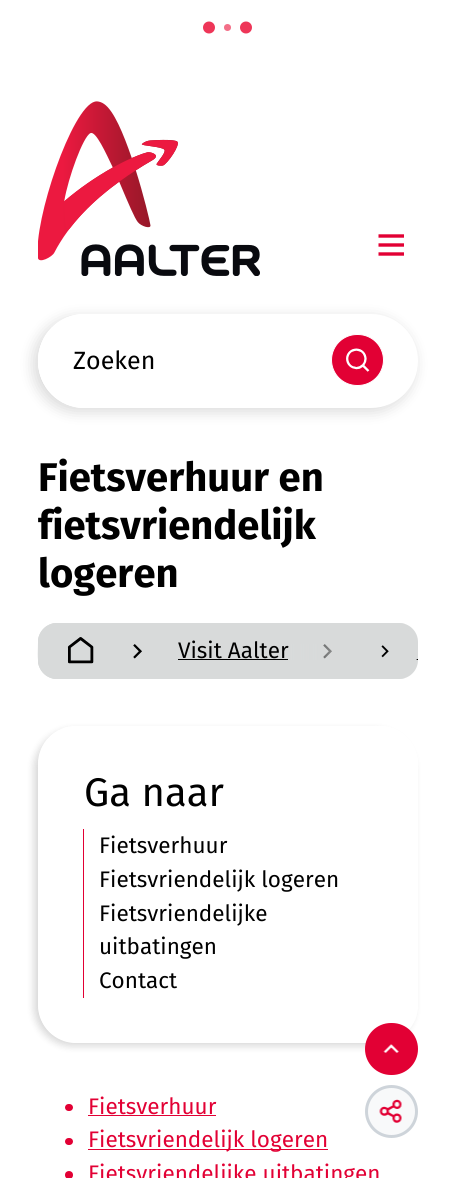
import math
import cairo



def rounded_rect(context, x, y, w, h, r):
    context.new_sub_path()
    for i, (u, v) in enumerate([(x + w - r, y + h - r), (x + r, y + h - r), (x + r, y + r), (x + w - r, y + r)]):
        context.arc(u, v, r, i * math.pi / 2, (i + 1) * math.pi / 2)
    context.close_path()


def draw_shadow(context, x, y, w, h, r, blur, alpha):
    context.push_group_with_content(cairo.Content.ALPHA)
    context.set_operator(cairo.Operator.SOURCE)
    for i in range(15, -16, -2):
        e = blur * i / 6
        if min(w, h) + 2 * e > 0:
            context.set_source_rgba(0, 0, 0, alpha * math.erfc((i - 1) / 8.5) / 2)
            rounded_rect(context, x - e, y - e, w + 2 * e, h + 2 * e, max(0, min(r + e + blur * .6, min(w, h) / 2 + e)))
            context.fill()
    context.mask(context.pop_group())


def draw_image(context, path, x, y, w, h):
    context.save()
    context.set_source_surface(cairo.ImageSurface.create_from_png(path), x, y)
    context.rectangle(x, y, w, h)
    context.fill()
    context.restore()


def draw(context):
    context.set_source_rgb(1, 1, 1)
    context.paint()
    context.set_source_rgb(238 / 255, 54 / 255, 88 / 255)
    context.arc(209, 27.5, 6, 0, 2 * math.pi)
    context.fill()
    context.set_source_rgb(243 / 255, 111 / 255, 136 / 255)
    context.arc(227.5, 27.5, 3.5, 0, 2 * math.pi)
    context.fill()
    context.set_source_rgb(238 / 255, 54 / 255, 88 / 255)
    context.arc(246, 27.5, 6, 0, 2 * math.pi)
    context.fill()
    draw_image(context, "images/1.png", 38, 101, 222, 175)
    context.new_path()
    context.move_to(378.5, 236)
    context.line_to(404, 236)
    context.move_to(378.5, 245)
    context.line_to(404, 245)
    context.move_to(378.5, 254)
    context.line_to(404, 254)
    context.set_source_rgb(226 / 255, 0, 52 / 255)
    context.set_line_width(3.4)
    context.stroke()
    context.set_source_rgb(0, 0, 0)
    draw_shadow(context, 34, 318, 380, 93, 46.5, 7.5, 0.16)
    context.set_source_rgb(1, 1, 1)
    rounded_rect(context, 38, 314, 380, 94, 47)
    context.fill()
    context.new_path()
    context.move_to(85, 314)
    context.line_to(274, 314)
    context.line_to(274, 408)
    context.line_to(85, 408)
    context.curve_to(59, 408, 38, 387, 38, 361)
    context.curve_to(38, 335, 59, 314, 85, 314)
    context.close_path()
    context.fill()
    context.set_fill_rule(cairo.FillRule.EVEN_ODD)
    context.new_path()
    context.move_to(84, 314)
    context.line_to(274, 314)
    context.line_to(274, 408)
    context.line_to(84, 408)
    context.curve_to(58, 408, 38, 387, 38, 361)
    context.curve_to(38, 335, 58, 314, 84, 314)
    context.close_path()
    context.move_to(84, 315)
    context.line_to(274, 315)
    context.line_to(274, 406)
    context.line_to(84, 406)
    context.curve_to(59, 406, 39, 386, 39, 361)
    context.curve_to(39, 335, 59, 315, 84, 315)
    context.close_path()
    context.fill()
    context.set_source_rgb(226 / 255, 0, 52 / 255)
    rounded_rect(context, 331.5, 334.5, 52, 51, 25.5)
    context.fill_preserve()
    context.set_source_rgb(1, 1, 1)
    context.set_line_width(1)
    context.stroke()
    draw_image(context, "images/2.png", 346, 348, 24, 24)
    context.set_source_rgb(216 / 255, 218 / 255, 218 / 255)
    context.new_path()
    context.move_to(57, 623)
    context.line_to(151, 623)
    context.line_to(151, 679)
    context.line_to(57, 679)
    context.curve_to(46.5, 679, 38, 670.5, 38, 660)
    context.line_to(38, 642)
    context.curve_to(38, 631.5, 46.5, 623, 57, 623)
    context.close_path()
    context.fill()
    context.new_path()
    context.move_to(57, 623)
    context.line_to(124, 623)
    context.line_to(124, 679)
    context.line_to(57, 679)
    context.curve_to(46.5, 679, 38, 670.5, 38, 660)
    context.line_to(38, 642)
    context.curve_to(38, 631.5, 46.5, 623, 57, 623)
    context.close_path()
    context.fill()
    context.new_path()
    context.move_to(38, 642)
    context.curve_to(38, 649, 37, 659, 39, 666)
    context.line_to(39, 636)
    context.close_path()
    context.move_to(57, 623)
    context.line_to(51, 624)
    context.line_to(123, 624)
    context.line_to(123, 678)
    context.line_to(51, 678)
    context.line_to(57, 679)
    context.line_to(124, 679)
    context.line_to(124, 623)
    context.close_path()
    context.fill()
    draw_image(context, "images/3.png", 67, 637, 27, 27)
    draw_image(context, "images/4.png", 133, 644, 9, 15)
    context.rectangle(151, 623, 190, 56)
    context.fill()
    context.set_source_rgb(0, 0, 0)
    context.rectangle(178, 659, 110, 1)
    context.fill()
    draw_image(context, "images/4.png", 323, 644, 9, 15)
    context.set_source_rgb(216 / 255, 218 / 255, 218 / 255)
    context.new_path()
    context.move_to(341, 623)
    context.line_to(399, 623)
    context.curve_to(409.5, 623, 418, 631.5, 418, 642)
    context.line_to(418, 660)
    context.curve_to(418, 670.5, 409.5, 679, 399, 679)
    context.line_to(341, 679)
    context.close_path()
    context.fill()
    context.set_fill_rule(cairo.FillRule.WINDING)
    context.new_path()
    context.move_to(341, 623)
    context.line_to(341, 679)
    context.line_to(399, 679)
    context.line_to(405, 678)
    context.line_to(342, 678)
    context.line_to(342, 624)
    context.line_to(405, 624)
    context.line_to(399, 623)
    context.close_path()
    context.fill()
    context.set_source_rgb(0, 0, 0)
    context.rectangle(416, 659, 2, 1)
    context.fill()
    context.set_source_rgb(216 / 255, 218 / 255, 218 / 255)
    rounded_rect(context, 359, 623, 59, 56, 28)
    context.fill()
    draw_image(context, "images/5.png", 381, 645, 8, 13)
    context.save()
    context.set_fill_rule(cairo.FillRule.EVEN_ODD)
    context.new_path()
    context.move_to(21, 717)
    context.line_to(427, 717)
    context.line_to(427, 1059)
    context.line_to(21, 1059)
    context.close_path()
    context.move_to(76, 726)
    context.line_to(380, 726)
    context.curve_to(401, 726, 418, 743, 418, 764)
    context.line_to(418, 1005)
    context.curve_to(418, 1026, 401, 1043, 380, 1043)
    context.line_to(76, 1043)
    context.curve_to(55, 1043, 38, 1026, 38, 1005)
    context.line_to(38, 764)
    context.curve_to(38, 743, 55, 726, 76, 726)
    context.close_path()
    context.clip()
    context.set_source_rgb(0, 0, 0)
    draw_shadow(context, 34, 730, 380, 316, 38, 4, 0.16)
    context.restore()
    context.set_source_rgb(226 / 255, 0, 52 / 255)
    context.rectangle(83, 829, 1, 169)
    context.fill()
    rounded_rect(context, 65, 1104, 8, 7, 3.5)
    context.fill()
    context.rectangle(88, 1115, 128, 1)
    context.fill()
    rounded_rect(context, 65, 1138, 8, 7, 3.5)
    context.fill()
    context.rectangle(88, 1149, 240, 1)
    context.fill()
    context.arc(69, 1175, 4, 0, 2 * math.pi)
    context.fill()
    rounded_rect(context, 366.5, 1024.5, 50, 49, 24.5)
    context.fill_preserve()
    context.set_line_width(3)
    context.stroke()
    draw_image(context, "images/6.png", 383, 1044, 16, 9)
    context.set_source_rgb(248 / 255, 249 / 255, 250 / 255)
    context.arc(391.5, 1111.5, 25, 0, 2 * math.pi)
    context.fill_preserve()
    context.set_source_rgb(206 / 255, 212 / 255, 218 / 255)
    context.stroke()
    draw_image(context, "images/7.png", 379, 1099, 23, 24)
    context.select_font_face("Fira Sans")
    context.set_font_size(25)
    context.set_source_rgb(0, 0, 0)
    context.move_to(73, 369)
    context.show_text("Zoeken")
    context.select_font_face("Fira Sans", cairo.FontSlant.NORMAL, cairo.FontWeight.BOLD)
    context.set_font_size(40)
    context.move_to(38, 491)
    context.show_text("Fietsverhuur en")
    context.move_to(38, 539)
    context.show_text("fietsvriendelijk")
    context.move_to(38, 587)
    context.show_text("logeren")
    context.select_font_face("Fira Sans")
    context.set_font_size(22.5)
    context.move_to(178, 658)
    context.show_text("Visit Aalter")
    gradient = cairo.LinearGradient(284, 651, 359, 651)
    gradient.add_color_stop_rgba(0, 216 / 255, 218 / 255, 218 / 255, 0)
    gradient.add_color_stop_rgba(1, 216 / 255, 218 / 255, 218 / 255, 1)
    context.set_source(gradient)
    context.rectangle(286, 644, 46, 16)
    context.fill()
    context.set_font_size(40)
    context.set_source_rgb(0, 0, 0)
    context.move_to(84, 806)
    context.show_text("Ga naar")
    context.set_font_size(22.5)
    context.move_to(99, 853)
    context.show_text("Fietsverhuur")
    context.move_to(99, 887)
    context.show_text("Fietsvriendelijk logeren")
    context.move_to(99, 921)
    context.show_text("Fietsvriendelijke")
    context.move_to(99, 954)
    context.show_text("uitbatingen")
    context.move_to(99, 988)
    context.show_text("Contact")
    context.set_source_rgb(226 / 255, 0, 52 / 255)
    context.move_to(88, 1114)
    context.show_text("Fietsverhuur")
    context.move_to(88, 1147)
    context.show_text("Fietsvriendelijk logeren")
    context.move_to(88, 1181)
    context.show_text("Fietsvriendelijke uitbatingen")


surface = cairo.ImageSurface(cairo.Format.RGB24, 454, 1178)
context = cairo.Context(surface)
options = cairo.FontOptions()
options.set_hint_metrics(cairo.HintMetrics.OFF)
options.set_hint_style(cairo.HintStyle.NONE)
context.set_font_options(options)
context.set_miter_limit(4)
draw(context)
surface.write_to_png("out.png")
